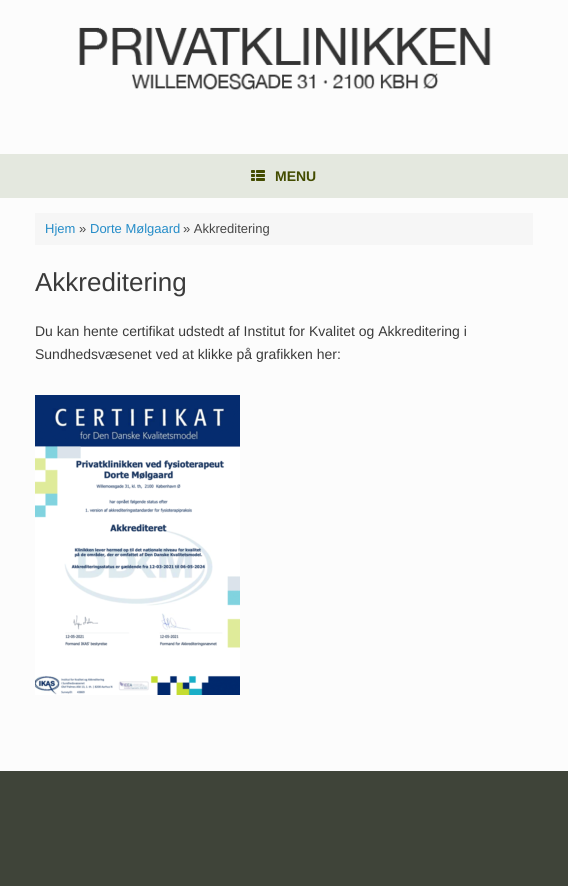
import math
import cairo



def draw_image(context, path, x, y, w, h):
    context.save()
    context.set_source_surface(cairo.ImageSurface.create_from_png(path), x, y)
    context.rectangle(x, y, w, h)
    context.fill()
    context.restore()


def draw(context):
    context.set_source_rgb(63 / 255, 68 / 255, 57 / 255)
    context.paint()
    context.set_source_rgb(252 / 255, 252 / 255, 252 / 255)
    context.rectangle(0, 0, 568, 154)
    context.fill()
    draw_image(context, "images/1.png", 79, 27, 412, 63)
    context.set_source_rgb(228 / 255, 232 / 255, 223 / 255)
    context.rectangle(0, 154, 568, 44)
    context.fill()
    draw_image(context, "images/2.png", 251, 170, 14, 11)
    context.set_source_rgb(252 / 255, 252 / 255, 252 / 255)
    context.rectangle(0, 198, 568, 573)
    context.fill()
    context.set_source_rgb(246 / 255, 246 / 255, 246 / 255)
    context.rectangle(35, 213, 498, 32)
    context.fill()
    draw_image(context, "images/3.png", 35, 395, 205, 300)
    context.select_font_face("Liberation Sans", cairo.FontSlant.NORMAL, cairo.FontWeight.BOLD)
    context.set_font_size(14)
    context.set_source_rgb(67 / 255, 76 / 255, 0)
    context.move_to(275, 181)
    context.show_text("MENU")
    context.select_font_face("Liberation Sans")
    context.set_font_size(13)
    context.set_source_rgb(36 / 255, 140 / 255, 200 / 255)
    context.move_to(45, 233)
    context.show_text("Hjem")
    context.set_source_rgb(71 / 255, 71 / 255, 71 / 255)
    context.move_to(79, 233)
    context.show_text("»")
    context.set_source_rgb(36 / 255, 140 / 255, 200 / 255)
    context.move_to(90, 233)
    context.show_text("Dorte Mølgaard")
    context.set_source_rgb(71 / 255, 71 / 255, 71 / 255)
    context.move_to(183, 233)
    context.show_text("» Akkreditering")
    context.set_font_size(26)
    context.set_source_rgb(59 / 255, 59 / 255, 59 / 255)
    context.move_to(35, 291)
    context.show_text("Akkreditering")
    context.set_font_size(14)
    context.move_to(35, 336)
    context.show_text("Du kan hente certifikat udstedt af Institut for Kvalitet og Akkreditering i")
    context.move_to(35, 359)
    context.show_text("Sundhedsvæsenet ved at klikke på grafikken her:")


surface = cairo.ImageSurface(cairo.Format.RGB24, 568, 886)
context = cairo.Context(surface)
options = cairo.FontOptions()
options.set_hint_metrics(cairo.HintMetrics.OFF)
options.set_hint_style(cairo.HintStyle.NONE)
context.set_font_options(options)
context.set_miter_limit(4)
draw(context)
surface.write_to_png("out.png")
